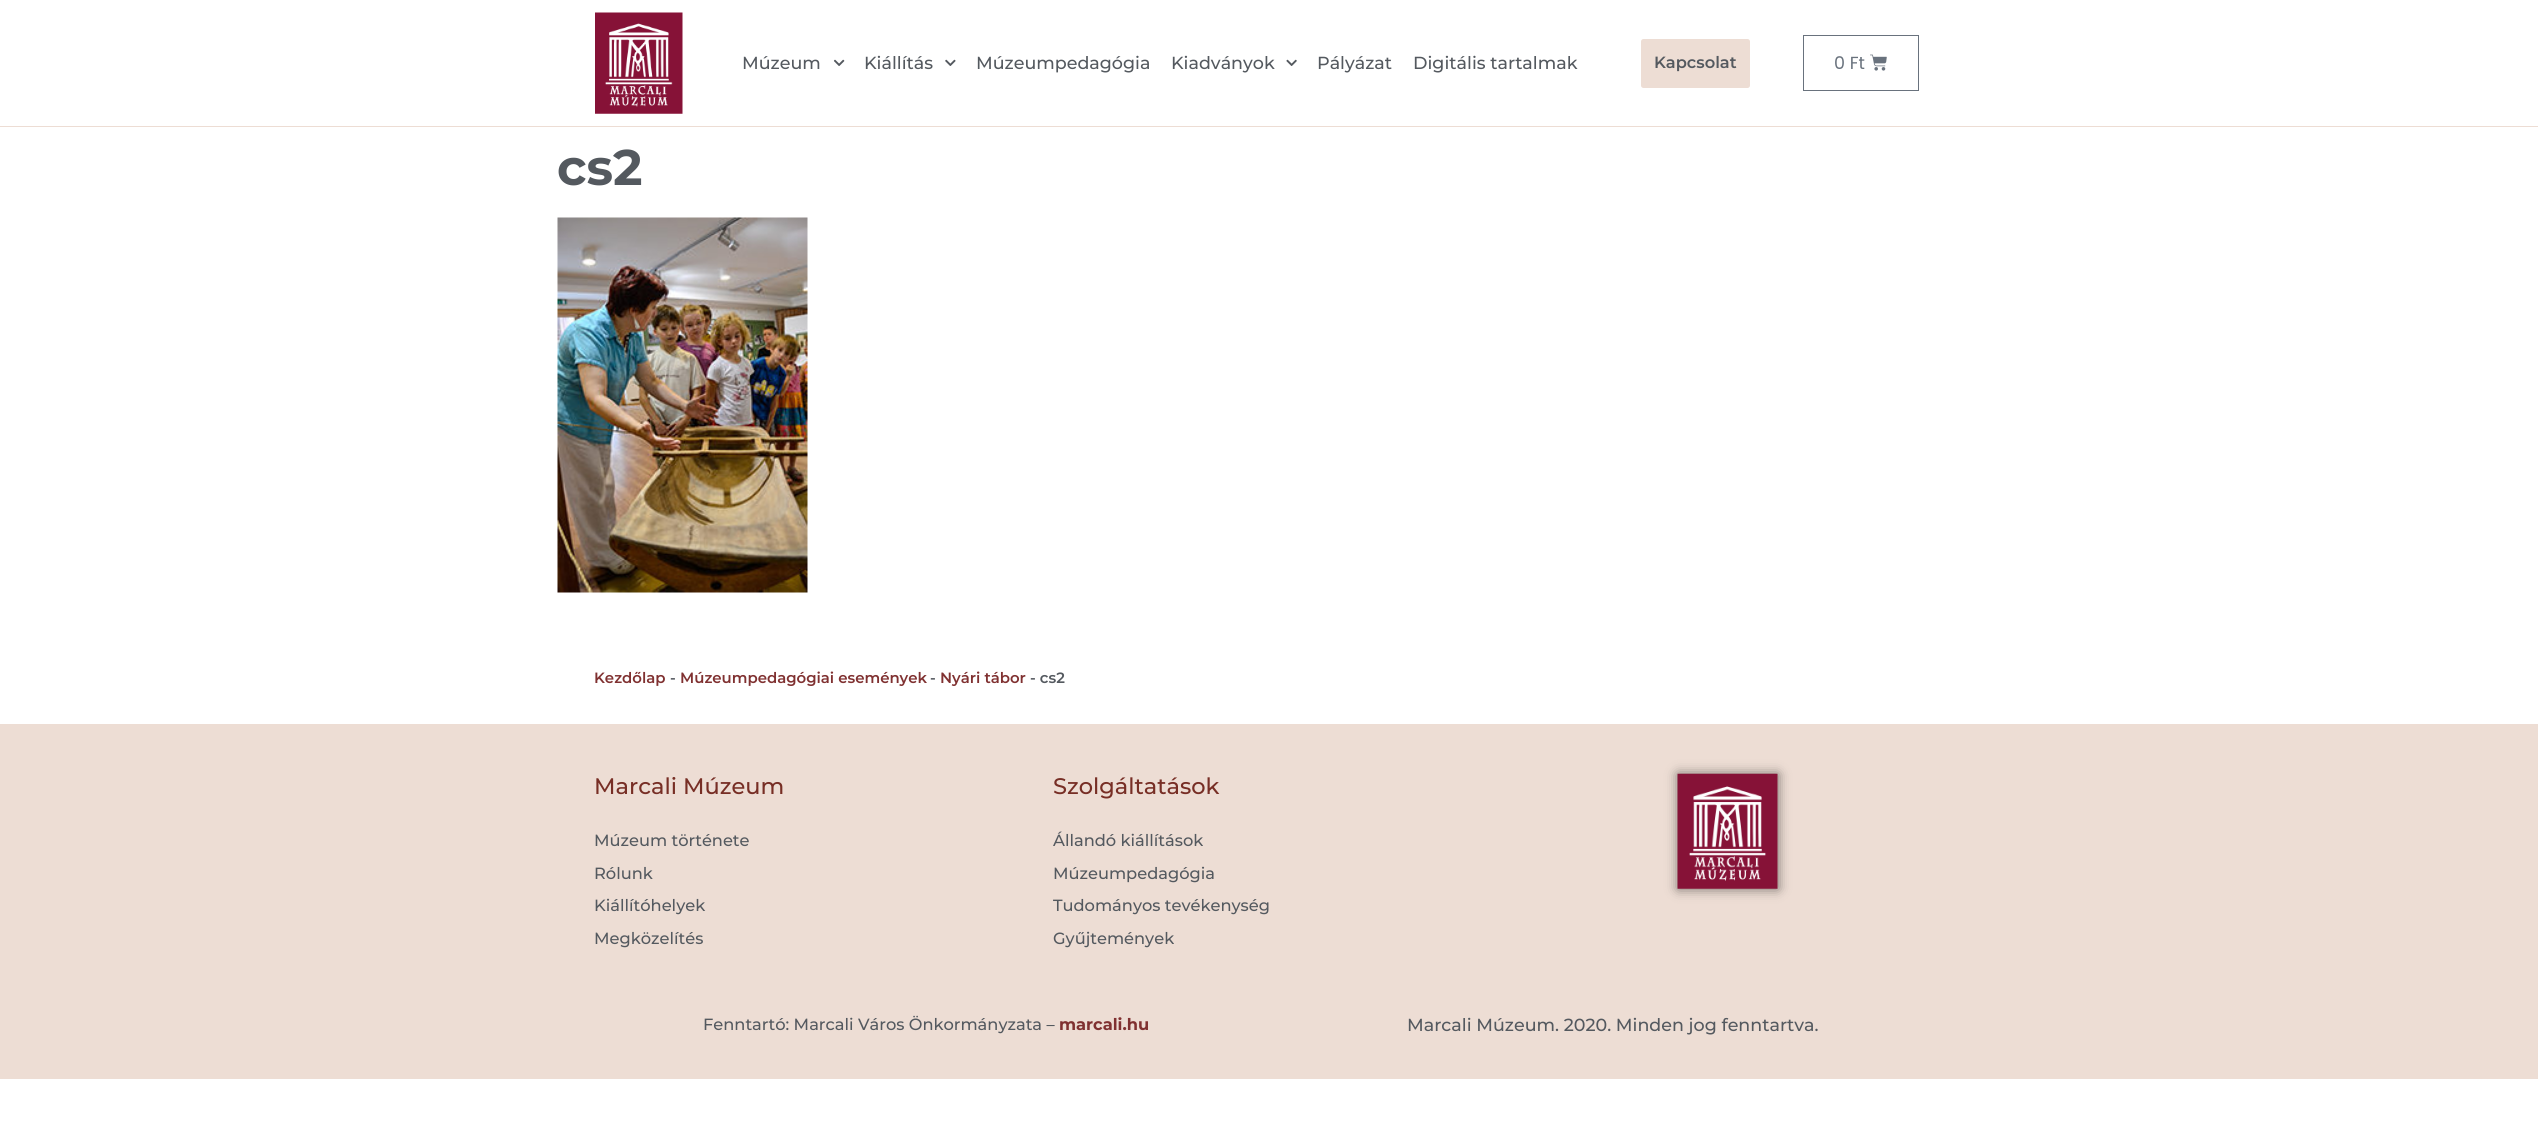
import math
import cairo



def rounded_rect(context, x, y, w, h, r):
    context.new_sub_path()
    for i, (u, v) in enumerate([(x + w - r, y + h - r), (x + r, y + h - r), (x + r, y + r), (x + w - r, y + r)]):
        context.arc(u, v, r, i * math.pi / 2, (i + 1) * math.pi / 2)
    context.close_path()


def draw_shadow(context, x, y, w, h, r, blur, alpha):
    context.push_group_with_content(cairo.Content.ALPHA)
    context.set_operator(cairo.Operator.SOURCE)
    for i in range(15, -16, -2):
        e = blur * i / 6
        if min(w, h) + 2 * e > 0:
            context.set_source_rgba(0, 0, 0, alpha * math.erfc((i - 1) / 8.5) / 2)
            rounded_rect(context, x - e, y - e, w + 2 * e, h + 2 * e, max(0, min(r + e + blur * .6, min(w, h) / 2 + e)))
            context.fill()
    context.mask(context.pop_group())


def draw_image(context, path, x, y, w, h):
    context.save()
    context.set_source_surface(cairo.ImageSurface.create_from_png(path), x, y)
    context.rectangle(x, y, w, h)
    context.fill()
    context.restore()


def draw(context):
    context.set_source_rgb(1, 1, 1)
    context.paint()
    context.set_source_rgb(237 / 255, 221 / 255, 212 / 255)
    context.rectangle(0, 126, 2538, 1)
    context.fill()
    draw_image(context, "images/1.png", 595, 12, 88, 102)
    draw_image(context, "images/2.png", 833, 59, 12, 7)
    draw_image(context, "images/3.png", 945, 59, 11, 7)
    draw_image(context, "images/4.png", 1286, 59, 11, 7)
    rounded_rect(context, 1641, 39, 109, 49, 2.5)
    context.fill()
    context.rectangle(1803.5, 35.5, 115, 55)
    context.set_source_rgb(105 / 255, 114 / 255, 125 / 255)
    context.set_line_width(1)
    context.stroke()
    draw_image(context, "images/5.png", 1870, 54, 17, 17)
    draw_image(context, "images/6.png", 557, 217, 251, 376)
    context.set_source_rgb(237 / 255, 221 / 255, 212 / 255)
    context.rectangle(0, 724, 2538, 355)
    context.fill()
    context.set_source_rgb(0, 0, 0)
    draw_shadow(context, 1678, 774, 100, 115, 0, 6, 0.5)
    draw_image(context, "images/7.png", 1677, 773, 101, 116)
    context.select_font_face("Montserrat Medium")
    context.set_font_size(17.5)
    context.set_source_rgb(84 / 255, 89 / 255, 95 / 255)
    context.move_to(742, 69)
    context.show_text("Múzeum")
    context.move_to(864, 69)
    context.show_text("Kiállítás")
    context.move_to(976, 69)
    context.show_text("Múzeumpedagógia")
    context.move_to(1171, 69)
    context.show_text("Kiadványok")
    context.move_to(1317, 69)
    context.show_text("Pályázat")
    context.move_to(1413, 69)
    context.show_text("Digitális tartalmak")
    context.select_font_face("Montserrat SemiBold")
    context.set_font_size(16.25)
    context.move_to(1654, 68)
    context.show_text("Kapcsolat")
    context.select_font_face("Poppins")
    context.set_font_size(17.5)
    context.set_source_rgb(105 / 255, 114 / 255, 125 / 255)
    context.move_to(1834, 69)
    context.show_text("0 Ft")
    context.select_font_face("Montserrat", cairo.FontSlant.NORMAL, cairo.FontWeight.BOLD)
    context.set_font_size(50)
    context.set_source_rgb(84 / 255, 89 / 255, 95 / 255)
    context.move_to(557, 185)
    context.show_text("cs2")
    context.select_font_face("Montserrat SemiBold")
    context.set_font_size(14.9)
    context.set_source_rgb(128 / 255, 49 / 255, 49 / 255)
    context.move_to(594, 683)
    context.show_text("Kezdőlap")
    context.set_source_rgb(84 / 255, 89 / 255, 95 / 255)
    context.move_to(670, 683)
    context.show_text("-")
    context.set_source_rgb(128 / 255, 49 / 255, 49 / 255)
    context.move_to(680, 683)
    context.show_text("Múzeumpedagógiai események")
    context.set_source_rgb(84 / 255, 89 / 255, 95 / 255)
    context.move_to(930, 683)
    context.show_text("-")
    context.set_source_rgb(128 / 255, 49 / 255, 49 / 255)
    context.move_to(940, 683)
    context.show_text("Nyári tábor")
    context.set_source_rgb(84 / 255, 89 / 255, 95 / 255)
    context.move_to(1030, 683)
    context.show_text("- cs2")
    context.select_font_face("Montserrat Medium")
    context.set_font_size(22.5)
    context.set_source_rgb(119 / 255, 46 / 255, 37 / 255)
    context.move_to(594, 794)
    context.show_text("Marcali Múzeum")
    context.set_font_size(16.25)
    context.set_source_rgb(84 / 255, 89 / 255, 95 / 255)
    context.move_to(594, 846)
    context.show_text("Múzeum története")
    context.move_to(594, 879)
    context.show_text("Rólunk")
    context.move_to(594, 911)
    context.show_text("Kiállítóhelyek")
    context.move_to(594, 944)
    context.show_text("Megközelítés")
    context.set_font_size(22.5)
    context.set_source_rgb(119 / 255, 46 / 255, 37 / 255)
    context.move_to(1053, 794)
    context.show_text("Szolgáltatások")
    context.set_font_size(16.25)
    context.set_source_rgb(84 / 255, 89 / 255, 95 / 255)
    context.move_to(1053, 846)
    context.show_text("Állandó kiállítások")
    context.move_to(1053, 879)
    context.show_text("Múzeumpedagógia")
    context.move_to(1053, 911)
    context.show_text("Tudományos tevékenység")
    context.move_to(1053, 944)
    context.show_text("Gyűjtemények")
    context.move_to(703, 1030)
    context.show_text("Fenntartó: Marcali Város Önkormányzata –")
    context.select_font_face("Montserrat", cairo.FontSlant.NORMAL, cairo.FontWeight.BOLD)
    context.set_source_rgb(128 / 255, 49 / 255, 49 / 255)
    context.move_to(1059, 1030)
    context.show_text("marcali.hu")
    context.select_font_face("Montserrat Medium")
    context.set_font_size(17.5)
    context.set_source_rgb(84 / 255, 89 / 255, 95 / 255)
    context.move_to(1407, 1031)
    context.show_text("Marcali Múzeum. 2020. Minden jog fenntartva.")


surface = cairo.ImageSurface(cairo.Format.RGB24, 2538, 1131)
context = cairo.Context(surface)
options = cairo.FontOptions()
options.set_hint_metrics(cairo.HintMetrics.OFF)
options.set_hint_style(cairo.HintStyle.NONE)
context.set_font_options(options)
context.set_miter_limit(4)
draw(context)
surface.write_to_png("out.png")
